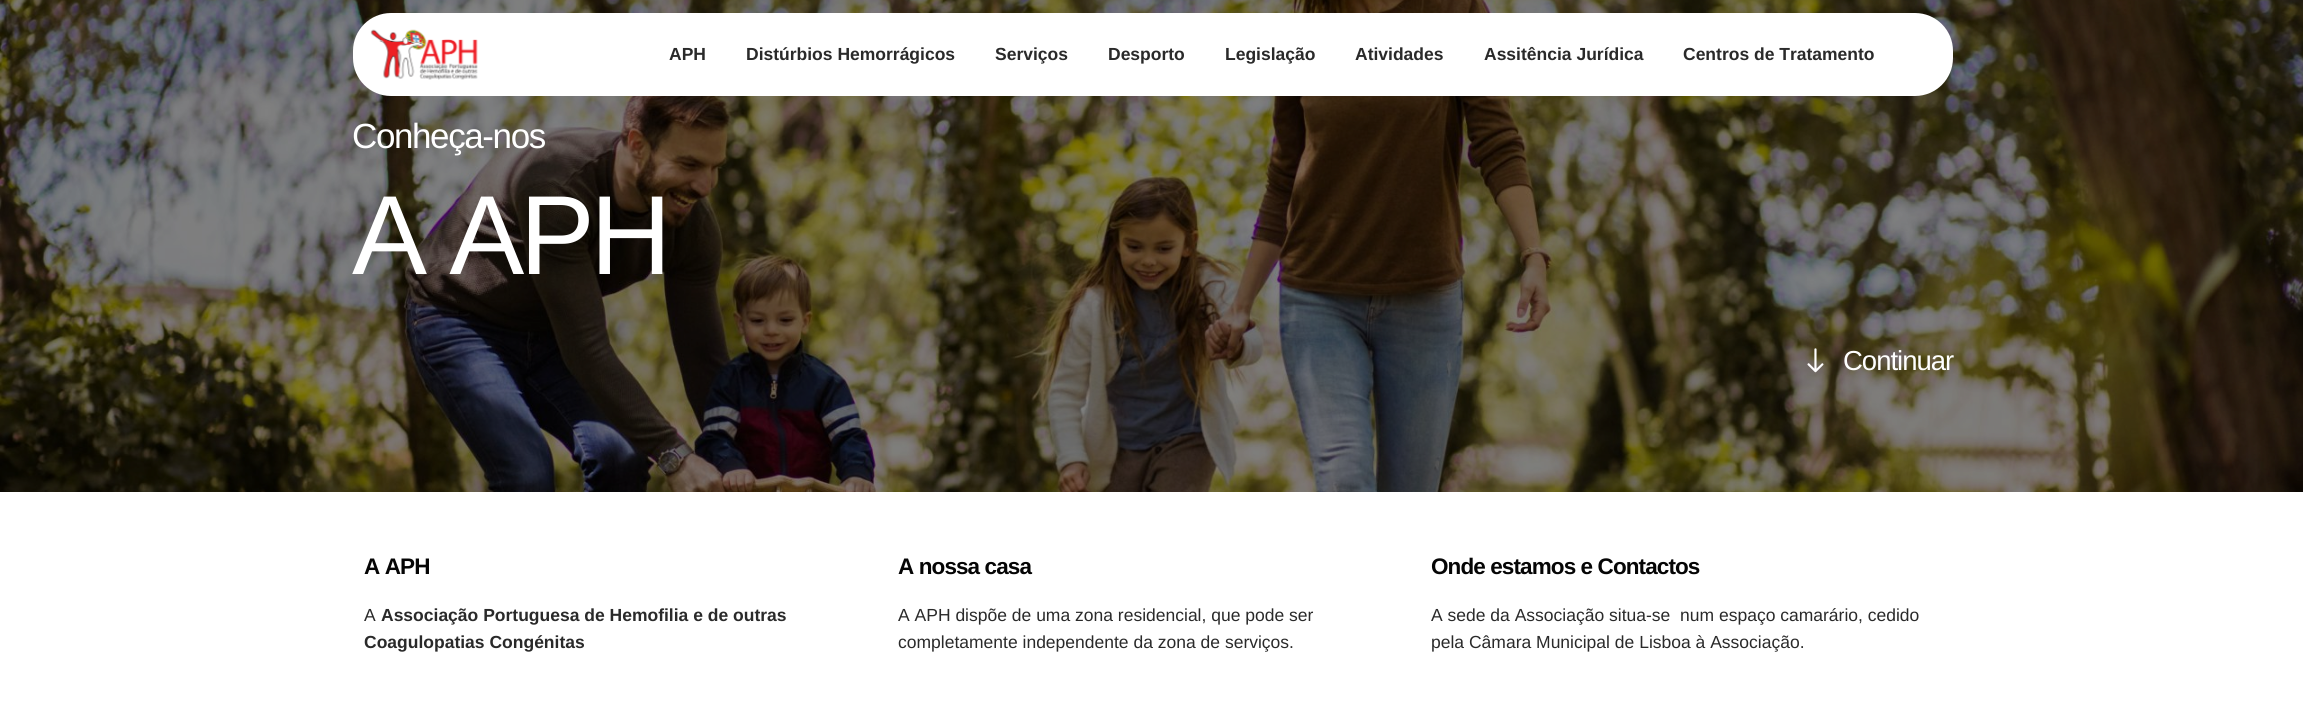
import math
import cairo



def draw_spaced(context, x, y, s, letter, word):
    context.move_to(x, y)
    for ch in s:
        context.show_text(ch)
        context.rel_move_to(letter + word * (ch == ' '), 0)


def draw_image(context, path, x, y, w, h):
    context.save()
    context.set_source_surface(cairo.ImageSurface.create_from_png(path), x, y)
    context.rectangle(x, y, w, h)
    context.fill()
    context.restore()


def draw(context):
    context.set_source_rgb(1, 1, 1)
    context.paint()
    draw_image(context, "images/2.png", 0, 0, 2303, 492)
    context.set_source_rgb(1, 1, 1)
    context.new_path()
    context.move_to(391, 13)
    context.line_to(593, 13)
    context.line_to(593, 96)
    context.line_to(391, 96)
    context.curve_to(370, 96, 353, 79, 353, 58)
    context.line_to(353, 51)
    context.curve_to(353, 30, 370, 13, 391, 13)
    context.close_path()
    context.fill()
    draw_image(context, "images/1.png", 370, 29, 108, 51)
    context.new_path()
    context.move_to(593, 13)
    context.line_to(1915, 13)
    context.curve_to(1936, 13, 1953, 30, 1953, 51)
    context.line_to(1953, 58)
    context.curve_to(1953, 79, 1936, 96, 1915, 96)
    context.line_to(593, 96)
    context.close_path()
    context.fill()
    draw_image(context, "images/3.png", 1807, 348, 17, 25)
    context.select_font_face("Liberation Sans", cairo.FontSlant.NORMAL, cairo.FontWeight.BOLD)
    context.set_font_size(17.5)
    context.set_source_rgb(42 / 255, 42 / 255, 42 / 255)
    context.move_to(669, 60)
    context.show_text("APH")
    context.move_to(746, 60)
    context.show_text("Distúrbios Hemorrágicos")
    context.move_to(995, 60)
    context.show_text("Serviços")
    context.move_to(1108, 60)
    context.show_text("Desporto")
    context.move_to(1225, 60)
    context.show_text("Legislação")
    context.move_to(1355, 60)
    context.show_text("Atividades")
    context.move_to(1484, 60)
    context.show_text("Assitência Jurídica")
    context.move_to(1683, 60)
    context.show_text("Centros de Tratamento")
    context.select_font_face("Liberation Sans")
    context.set_font_size(35)
    context.set_source_rgb(1, 1, 1)
    draw_spaced(context, 352, 148, "Conheça-nos", -1.4, 0)
    context.set_font_size(112.5)
    draw_spaced(context, 352, 274, "A APH", -4.5, 0)
    context.set_font_size(27.5)
    draw_spaced(context, 1843, 370, "Continuar", -1, 0)
    context.select_font_face("Liberation Sans", cairo.FontSlant.NORMAL, cairo.FontWeight.BOLD)
    context.set_font_size(22.5)
    context.set_source_rgb(5 / 255, 5 / 255, 5 / 255)
    draw_spaced(context, 364, 574, "A APH", -0.9, 0)
    context.select_font_face("Liberation Sans")
    context.set_font_size(17.5)
    context.set_source_rgb(42 / 255, 42 / 255, 42 / 255)
    context.move_to(364, 621)
    context.show_text("A")
    context.select_font_face("Liberation Sans", cairo.FontSlant.NORMAL, cairo.FontWeight.BOLD)
    context.move_to(381, 621)
    context.show_text("Associação Portuguesa de Hemofilia e de outras")
    context.move_to(364, 648)
    context.show_text("Coagulopatias Congénitas")
    context.set_font_size(22.5)
    context.set_source_rgb(5 / 255, 5 / 255, 5 / 255)
    draw_spaced(context, 898, 574, "A nossa casa", -0.9, 0)
    context.select_font_face("Liberation Sans")
    context.set_font_size(17.5)
    context.set_source_rgb(42 / 255, 42 / 255, 42 / 255)
    context.move_to(898, 621)
    context.show_text("A APH dispõe de uma zona residencial, que pode ser")
    context.move_to(898, 648)
    context.show_text("completamente independente da zona de serviços.")
    context.select_font_face("Liberation Sans", cairo.FontSlant.NORMAL, cairo.FontWeight.BOLD)
    context.set_font_size(22.5)
    context.set_source_rgb(5 / 255, 5 / 255, 5 / 255)
    draw_spaced(context, 1431, 574, "Onde estamos e Contactos", -0.9, 0)
    context.select_font_face("Liberation Sans")
    context.set_font_size(17.5)
    context.set_source_rgb(42 / 255, 42 / 255, 42 / 255)
    context.move_to(1431, 621)
    context.show_text("A sede da Associação situa-se  num espaço camarário, cedido")
    context.move_to(1431, 648)
    context.show_text("pela Câmara Municipal de Lisboa à Associação.")


surface = cairo.ImageSurface(cairo.Format.RGB24, 2303, 727)
context = cairo.Context(surface)
options = cairo.FontOptions()
options.set_hint_metrics(cairo.HintMetrics.OFF)
options.set_hint_style(cairo.HintStyle.NONE)
context.set_font_options(options)
context.set_miter_limit(4)
draw(context)
surface.write_to_png("out.png")
